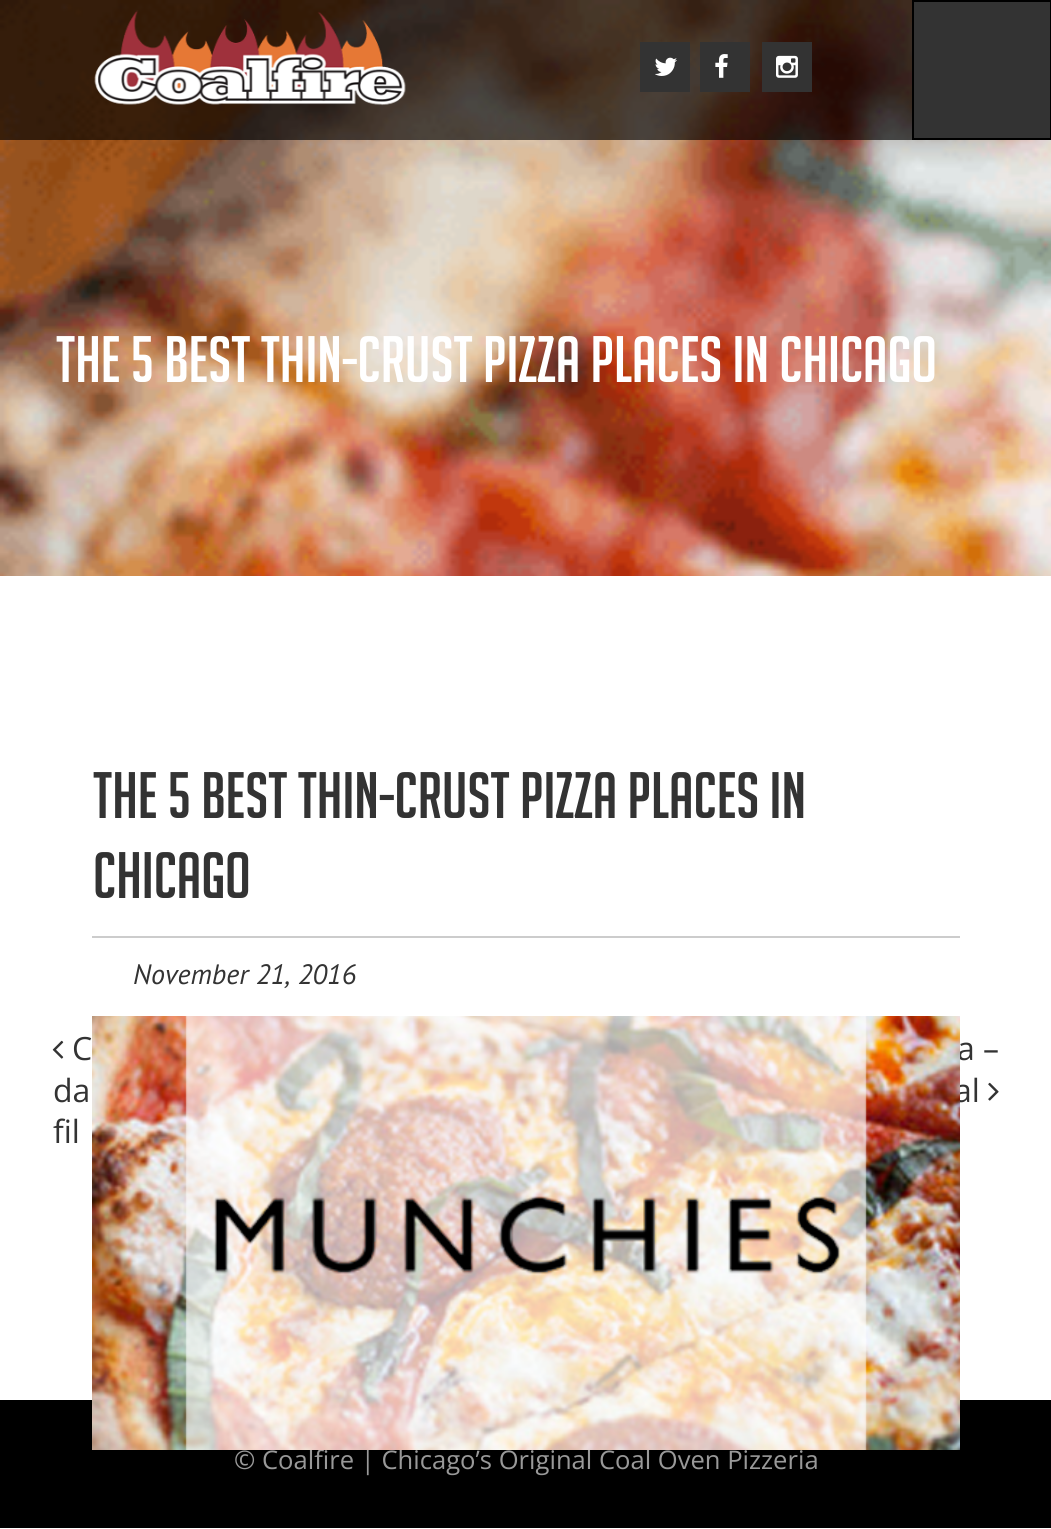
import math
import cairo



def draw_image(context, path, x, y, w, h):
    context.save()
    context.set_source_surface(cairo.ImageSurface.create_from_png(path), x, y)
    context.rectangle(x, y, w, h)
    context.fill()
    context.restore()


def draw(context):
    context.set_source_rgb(1, 1, 1)
    context.paint()
    draw_image(context, "images/5.png", 0, 0, 1051, 576)
    context.set_source_rgba(0, 0, 0, 0.65)
    context.rectangle(0, 0, 912, 140)
    context.fill()
    draw_image(context, "images/1.png", 94, 10, 312, 96)
    context.set_source_rgb(51 / 255, 51 / 255, 51 / 255)
    context.rectangle(640, 42, 50, 50)
    context.fill()
    draw_image(context, "images/2.png", 655, 57, 22, 19)
    context.rectangle(700, 42, 50, 50)
    context.fill()
    draw_image(context, "images/3.png", 715, 54, 13, 24)
    context.rectangle(762, 42, 50, 50)
    context.fill()
    draw_image(context, "images/4.png", 776, 55, 22, 23)
    context.rectangle(913, 1, 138, 138)
    context.fill_preserve()
    context.set_source_rgb(0, 0, 0)
    context.stroke()
    context.set_source_rgb(204 / 255, 204 / 255, 204 / 255)
    context.rectangle(92, 936, 868, 2)
    context.fill()
    draw_image(context, "images/7.png", 52, 1040, 12, 19)
    draw_image(context, "images/8.png", 988, 1082, 11, 19)
    context.set_source_rgb(0, 0, 0)
    context.rectangle(0, 1400, 1051, 128)
    context.fill()
    context.select_font_face("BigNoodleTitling")
    context.set_font_size(64)
    context.set_source_rgb(1, 1, 1)
    context.move_to(56, 382)
    context.show_text("THE 5 BEST THIN-CRUST PIZZA PLACES IN CHICAGO")
    context.set_source_rgb(51 / 255, 51 / 255, 51 / 255)
    context.move_to(93, 818)
    context.show_text("The 5 Best Thin-Crust Pizza Places in")
    context.move_to(93, 898)
    context.show_text("Chicago")
    context.select_font_face("PT Sans", cairo.FontSlant.ITALIC)
    context.set_font_size(28)
    context.move_to(133, 984)
    context.show_text("November 21, 2016")
    context.select_font_face("Open Sans")
    context.set_font_size(32)
    context.move_to(72, 1060)
    context.show_text("C")
    context.move_to(53, 1102)
    context.show_text("da")
    context.move_to(53, 1143)
    context.show_text("fil")
    context.move_to(957, 1060)
    context.show_text("a –")
    context.move_to(954, 1102)
    context.show_text("al")
    context.set_font_size(25.6)
    context.set_source_rgb(153 / 255, 153 / 255, 153 / 255)
    context.move_to(234, 1469)
    context.show_text("© Coalfire | Chicago’s Original Coal Oven Pizzeria")
    draw_image(context, "images/6.png", 92, 1016, 868, 434)


surface = cairo.ImageSurface(cairo.Format.RGB24, 1051, 1529)
context = cairo.Context(surface)
options = cairo.FontOptions()
options.set_hint_metrics(cairo.HintMetrics.OFF)
options.set_hint_style(cairo.HintStyle.NONE)
context.set_font_options(options)
context.set_miter_limit(4)
draw(context)
surface.write_to_png("out.png")
